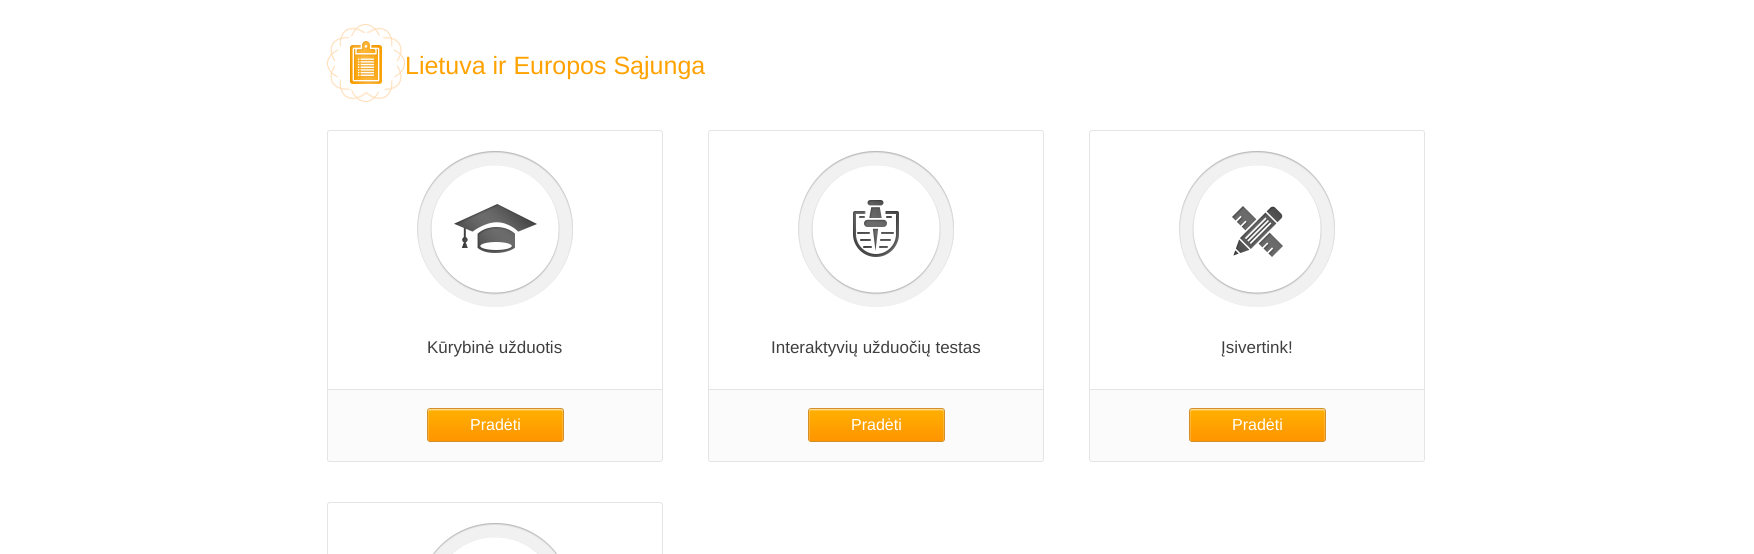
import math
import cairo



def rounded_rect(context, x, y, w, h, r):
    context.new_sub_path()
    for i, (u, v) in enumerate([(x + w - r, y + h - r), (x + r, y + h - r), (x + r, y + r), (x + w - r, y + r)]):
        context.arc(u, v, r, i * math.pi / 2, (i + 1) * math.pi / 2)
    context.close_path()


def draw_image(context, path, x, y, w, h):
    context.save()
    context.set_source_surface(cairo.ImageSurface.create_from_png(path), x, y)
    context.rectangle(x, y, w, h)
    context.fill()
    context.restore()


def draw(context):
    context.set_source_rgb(1, 1, 1)
    context.paint()
    draw_image(context, "images/1.png", 327, 24, 78, 78)
    rounded_rect(context, 327.5, 130.5, 335, 331, 2.5)
    context.set_source_rgb(228 / 255, 228 / 255, 228 / 255)
    context.set_line_width(1)
    context.stroke()
    draw_image(context, "images/2.png", 417, 151, 156, 156)
    context.rectangle(328, 389, 334, 1)
    context.fill()
    context.set_source_rgb(251 / 255, 251 / 255, 251 / 255)
    context.new_path()
    context.move_to(328, 390)
    context.line_to(662, 390)
    context.line_to(662, 458)
    context.curve_to(662, 459.5, 660.5, 461, 659, 461)
    context.line_to(331, 461)
    context.curve_to(329.5, 461, 328, 459.5, 328, 458)
    context.close_path()
    context.fill()
    draw_image(context, "images/3.png", 427, 408, 137, 34)
    rounded_rect(context, 708.5, 130.5, 335, 331, 2.5)
    context.set_source_rgb(228 / 255, 228 / 255, 228 / 255)
    context.stroke()
    draw_image(context, "images/4.png", 798, 151, 156, 156)
    context.rectangle(709, 389, 334, 1)
    context.fill()
    context.set_source_rgb(251 / 255, 251 / 255, 251 / 255)
    context.new_path()
    context.move_to(709, 390)
    context.line_to(1043, 390)
    context.line_to(1043, 458)
    context.curve_to(1043, 459.5, 1041.5, 461, 1040, 461)
    context.line_to(712, 461)
    context.curve_to(710.5, 461, 709, 459.5, 709, 458)
    context.close_path()
    context.fill()
    draw_image(context, "images/3.png", 808, 408, 137, 34)
    rounded_rect(context, 1089.5, 130.5, 335, 331, 2.5)
    context.set_source_rgb(228 / 255, 228 / 255, 228 / 255)
    context.stroke()
    draw_image(context, "images/5.png", 1179, 151, 156, 156)
    context.rectangle(1090, 389, 334, 1)
    context.fill()
    context.set_source_rgb(251 / 255, 251 / 255, 251 / 255)
    context.new_path()
    context.move_to(1090, 390)
    context.line_to(1424, 390)
    context.line_to(1424, 458)
    context.curve_to(1424, 459.5, 1422.5, 461, 1421, 461)
    context.line_to(1093, 461)
    context.curve_to(1091.5, 461, 1090, 459.5, 1090, 458)
    context.close_path()
    context.fill()
    draw_image(context, "images/3.png", 1189, 408, 137, 34)
    rounded_rect(context, 327.5, 502.5, 335, 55, 2.5)
    context.set_source_rgb(228 / 255, 228 / 255, 228 / 255)
    context.stroke()
    draw_image(context, "images/6.png", 433, 523, 124, 31)
    context.select_font_face("Liberation Sans")
    context.set_font_size(25)
    context.set_source_rgb(1, 162 / 255, 0)
    context.move_to(405, 74)
    context.show_text("Lietuva ir Europos Sąjunga")
    context.set_font_size(17)
    context.set_source_rgb(63 / 255, 63 / 255, 63 / 255)
    context.move_to(427, 353)
    context.show_text("Kūrybinė užduotis")
    context.set_font_size(16)
    context.set_source_rgb(1, 1, 1)
    context.move_to(470, 430)
    context.show_text("Pradėti")
    context.set_font_size(17)
    context.set_source_rgb(63 / 255, 63 / 255, 63 / 255)
    context.move_to(771, 353)
    context.show_text("Interaktyvių užduočių testas")
    context.set_font_size(16)
    context.set_source_rgb(1, 1, 1)
    context.move_to(851, 430)
    context.show_text("Pradėti")
    context.set_font_size(17)
    context.set_source_rgb(63 / 255, 63 / 255, 63 / 255)
    context.move_to(1221, 353)
    context.show_text("Įsivertink!")
    context.set_font_size(16)
    context.set_source_rgb(1, 1, 1)
    context.move_to(1232, 430)
    context.show_text("Pradėti")


surface = cairo.ImageSurface(cairo.Format.RGB24, 1754, 554)
context = cairo.Context(surface)
options = cairo.FontOptions()
options.set_hint_metrics(cairo.HintMetrics.OFF)
options.set_hint_style(cairo.HintStyle.NONE)
context.set_font_options(options)
context.set_miter_limit(4)
draw(context)
surface.write_to_png("out.png")
